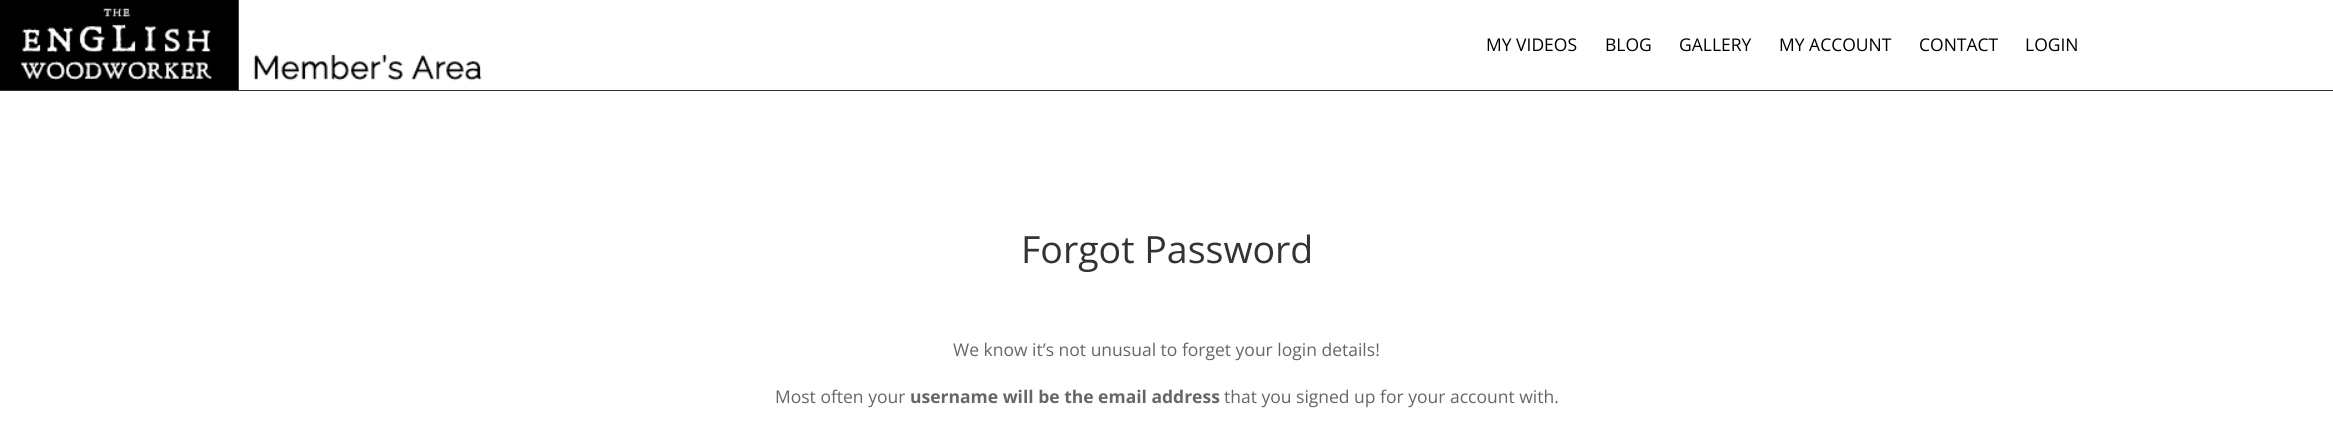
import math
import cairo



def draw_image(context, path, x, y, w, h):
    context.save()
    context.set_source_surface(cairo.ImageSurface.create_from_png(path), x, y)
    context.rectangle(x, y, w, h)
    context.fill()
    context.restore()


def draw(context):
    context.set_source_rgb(1, 1, 1)
    context.paint()
    context.set_source_rgb(51 / 255, 51 / 255, 51 / 255)
    context.rectangle(0, 90, 2333, 1)
    context.fill()
    draw_image(context, "images/1.png", 0, 0, 482, 90)
    context.select_font_face("Open Sans")
    context.set_font_size(17.5)
    context.set_source_rgb(0, 0, 0)
    context.move_to(1486, 51)
    context.show_text("MY VIDEOS")
    context.move_to(1605, 51)
    context.show_text("BLOG")
    context.move_to(1679, 51)
    context.show_text("GALLERY")
    context.move_to(1779, 51)
    context.show_text("MY ACCOUNT")
    context.move_to(1919, 51)
    context.show_text("CONTACT")
    context.move_to(2025, 51)
    context.show_text("LOGIN")
    context.set_font_size(37.5)
    context.set_source_rgb(51 / 255, 51 / 255, 51 / 255)
    context.move_to(1021, 263)
    context.show_text("Forgot Password")
    context.set_font_size(17.5)
    context.set_source_rgb(102 / 255, 102 / 255, 102 / 255)
    context.move_to(953, 356)
    context.show_text("We know it’s not unusual to forget your login details!")
    context.move_to(775, 403)
    context.show_text("Most often your")
    context.select_font_face("Open Sans", cairo.FontSlant.NORMAL, cairo.FontWeight.BOLD)
    context.move_to(910, 403)
    context.show_text("username will be the email address")
    context.select_font_face("Open Sans")
    context.move_to(1224, 403)
    context.show_text("that you signed up for your account with.")


surface = cairo.ImageSurface(cairo.Format.RGB24, 2333, 433)
context = cairo.Context(surface)
options = cairo.FontOptions()
options.set_hint_metrics(cairo.HintMetrics.OFF)
options.set_hint_style(cairo.HintStyle.NONE)
context.set_font_options(options)
context.set_miter_limit(4)
draw(context)
surface.write_to_png("out.png")
